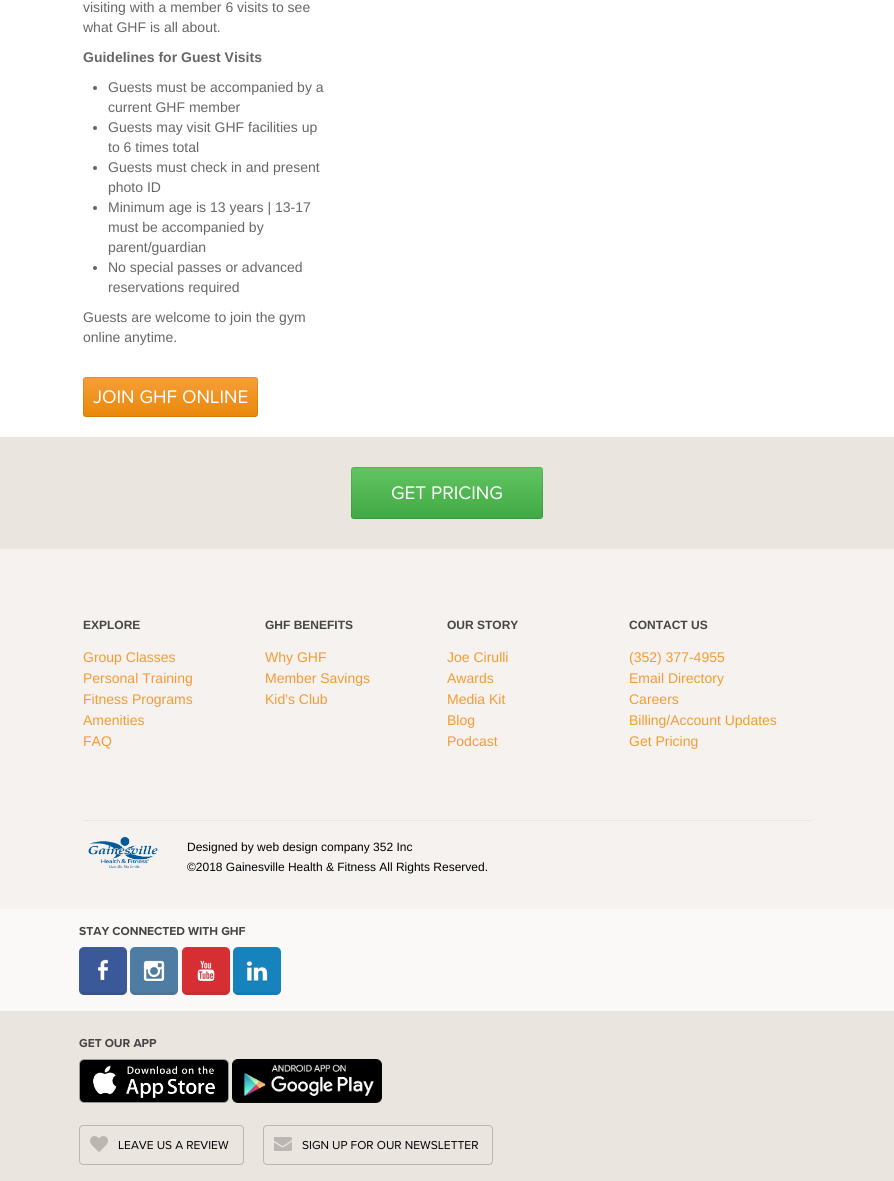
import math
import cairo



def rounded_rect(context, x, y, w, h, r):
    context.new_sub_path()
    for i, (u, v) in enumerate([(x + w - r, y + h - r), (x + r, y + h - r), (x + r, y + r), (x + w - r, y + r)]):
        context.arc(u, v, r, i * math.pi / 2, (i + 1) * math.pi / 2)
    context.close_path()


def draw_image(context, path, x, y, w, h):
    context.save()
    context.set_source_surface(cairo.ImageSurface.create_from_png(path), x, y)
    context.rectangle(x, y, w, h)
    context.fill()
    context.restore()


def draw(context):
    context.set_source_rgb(1, 1, 1)
    context.paint()
    context.set_source_rgb(102 / 255, 102 / 255, 102 / 255)
    context.arc(95, 88, 2, 0, 2 * math.pi)
    context.fill()
    context.arc(95, 128, 2, 0, 2 * math.pi)
    context.fill()
    context.arc(95, 168, 2, 0, 2 * math.pi)
    context.fill()
    context.arc(95, 208, 2, 0, 2 * math.pi)
    context.fill()
    context.arc(95, 268, 2, 0, 2 * math.pi)
    context.fill()
    gradient = cairo.LinearGradient(171, 377, 171, 417)
    gradient.add_color_stop_rgba(0, 247 / 255, 158 / 255, 56 / 255, 1)
    gradient.add_color_stop_rgba(1, 232 / 255, 136 / 255, 9 / 255, 1)
    context.set_source(gradient)
    rounded_rect(context, 83, 377, 175, 40, 3)
    context.fill()
    rounded_rect(context, 83.5, 377.5, 174, 39, 2.5)
    context.set_source_rgba(0, 0, 0, 0.1)
    context.set_line_width(1)
    context.stroke()
    context.set_source_rgb(235 / 255, 229 / 255, 224 / 255)
    context.rectangle(0, 437, 894, 112)
    context.fill()
    gradient = cairo.LinearGradient(447, 467, 447, 519)
    gradient.add_color_stop_rgba(0, 98 / 255, 196 / 255, 98 / 255, 1)
    gradient.add_color_stop_rgba(1, 64 / 255, 169 / 255, 67 / 255, 1)
    context.set_source(gradient)
    rounded_rect(context, 351, 467, 192, 52, 3)
    context.fill()
    rounded_rect(context, 351.5, 467.5, 191, 51, 2.5)
    context.set_source_rgba(0, 0, 0, 0.1)
    context.stroke()
    context.set_source_rgb(245 / 255, 242 / 255, 239 / 255)
    context.rectangle(0, 549, 894, 360)
    context.fill()
    context.set_source_rgb(235 / 255, 229 / 255, 224 / 255)
    context.rectangle(83, 820, 728, 1)
    context.fill()
    draw_image(context, "images/1.png", 88, 837, 70, 31)
    context.set_source_rgb(251 / 255, 249 / 255, 248 / 255)
    context.rectangle(0, 909, 894, 102)
    context.fill()
    draw_image(context, "images/2.png", 79, 947, 48, 48)
    draw_image(context, "images/3.png", 130, 947, 48, 48)
    draw_image(context, "images/4.png", 182, 947, 48, 48)
    draw_image(context, "images/5.png", 233, 947, 48, 48)
    context.set_source_rgb(235 / 255, 229 / 255, 224 / 255)
    context.rectangle(0, 1011, 894, 170)
    context.fill()
    draw_image(context, "images/6.png", 79, 1059, 150, 44)
    draw_image(context, "images/7.png", 232, 1059, 150, 44)
    rounded_rect(context, 79.5, 1125.5, 164, 39, 3.5)
    context.set_source_rgb(187 / 255, 182 / 255, 178 / 255)
    context.stroke()
    draw_image(context, "images/8.png", 90, 1136, 18, 16)
    rounded_rect(context, 263.5, 1125.5, 229, 39, 3.5)
    context.stroke()
    draw_image(context, "images/9.png", 274, 1137, 18, 14)
    context.select_font_face("Liberation Sans")
    context.set_font_size(14)
    context.set_source_rgb(102 / 255, 102 / 255, 102 / 255)
    context.move_to(83, 12)
    context.show_text("visiting with a member 6 visits to see")
    context.move_to(83, 32)
    context.show_text("what GHF is all about.")
    context.select_font_face("Liberation Sans", cairo.FontSlant.NORMAL, cairo.FontWeight.BOLD)
    context.move_to(83, 62)
    context.show_text("Guidelines for Guest Visits")
    context.select_font_face("Liberation Sans")
    context.move_to(108, 92)
    context.show_text("Guests must be accompanied by a")
    context.move_to(108, 112)
    context.show_text("current GHF member")
    context.move_to(108, 132)
    context.show_text("Guests may visit GHF facilities up")
    context.move_to(108, 152)
    context.show_text("to 6 times total")
    context.move_to(108, 172)
    context.show_text("Guests must check in and present")
    context.move_to(108, 192)
    context.show_text("photo ID")
    context.move_to(108, 212)
    context.show_text("Minimum age is 13 years | 13-17")
    context.move_to(108, 232)
    context.show_text("must be accompanied by")
    context.move_to(108, 252)
    context.show_text("parent/guardian")
    context.move_to(108, 272)
    context.show_text("No special passes or advanced")
    context.move_to(108, 292)
    context.show_text("reservations required")
    context.move_to(83, 322)
    context.show_text("Guests are welcome to join the gym")
    context.move_to(83, 342)
    context.show_text("online anytime.")
    context.select_font_face("Proxima Nova")
    context.set_font_size(19)
    context.set_source_rgb(1, 1, 1)
    context.move_to(93, 403)
    context.show_text("JOIN GHF ONLINE")
    context.move_to(391, 499)
    context.show_text("GET PRICING")
    context.select_font_face("Liberation Sans", cairo.FontSlant.NORMAL, cairo.FontWeight.BOLD)
    context.set_font_size(12)
    context.set_source_rgb(69 / 255, 69 / 255, 69 / 255)
    context.move_to(83, 629)
    context.show_text("EXPLORE")
    context.select_font_face("Liberation Sans")
    context.set_font_size(14)
    context.set_source_rgb(245 / 255, 155 / 255, 50 / 255)
    context.move_to(83, 662)
    context.show_text("Group Classes")
    context.move_to(83, 683)
    context.show_text("Personal Training")
    context.move_to(83, 704)
    context.show_text("Fitness Programs")
    context.move_to(83, 725)
    context.show_text("Amenities")
    context.move_to(83, 746)
    context.show_text("FAQ")
    context.select_font_face("Liberation Sans", cairo.FontSlant.NORMAL, cairo.FontWeight.BOLD)
    context.set_font_size(12)
    context.set_source_rgb(69 / 255, 69 / 255, 69 / 255)
    context.move_to(265, 629)
    context.show_text("GHF BENEFITS")
    context.select_font_face("Liberation Sans")
    context.set_font_size(14)
    context.set_source_rgb(245 / 255, 155 / 255, 50 / 255)
    context.move_to(265, 662)
    context.show_text("Why GHF")
    context.move_to(265, 683)
    context.show_text("Member Savings")
    context.move_to(265, 704)
    context.show_text("Kid's Club")
    context.select_font_face("Liberation Sans", cairo.FontSlant.NORMAL, cairo.FontWeight.BOLD)
    context.set_font_size(12)
    context.set_source_rgb(69 / 255, 69 / 255, 69 / 255)
    context.move_to(447, 629)
    context.show_text("OUR STORY")
    context.select_font_face("Liberation Sans")
    context.set_font_size(14)
    context.set_source_rgb(245 / 255, 155 / 255, 50 / 255)
    context.move_to(447, 662)
    context.show_text("Joe Cirulli")
    context.move_to(447, 683)
    context.show_text("Awards")
    context.move_to(447, 704)
    context.show_text("Media Kit")
    context.move_to(447, 725)
    context.show_text("Blog")
    context.move_to(447, 746)
    context.show_text("Podcast")
    context.select_font_face("Liberation Sans", cairo.FontSlant.NORMAL, cairo.FontWeight.BOLD)
    context.set_font_size(12)
    context.set_source_rgb(69 / 255, 69 / 255, 69 / 255)
    context.move_to(629, 629)
    context.show_text("CONTACT US")
    context.select_font_face("Liberation Sans")
    context.set_font_size(14)
    context.set_source_rgb(245 / 255, 155 / 255, 50 / 255)
    context.move_to(629, 662)
    context.show_text("(352) 377-4955")
    context.move_to(629, 683)
    context.show_text("Email Directory")
    context.move_to(629, 704)
    context.show_text("Careers")
    context.move_to(629, 725)
    context.show_text("Billing/Account Updates")
    context.move_to(629, 746)
    context.show_text("Get Pricing")
    context.set_font_size(12)
    context.set_source_rgb(0, 0, 0)
    context.move_to(187, 851)
    context.show_text("Designed by web design company 352 Inc")
    context.move_to(187, 871)
    context.show_text("©2018 Gainesville Health & Fitness All Rights Reserved.")
    context.select_font_face("Proxima Nova", cairo.FontSlant.NORMAL, cairo.FontWeight.BOLD)
    context.set_source_rgb(69 / 255, 69 / 255, 69 / 255)
    context.move_to(79, 935)
    context.show_text("STAY CONNECTED WITH GHF")
    context.move_to(79, 1047)
    context.show_text("GET OUR APP")
    context.select_font_face("Proxima Nova")
    context.set_source_rgb(0, 0, 0)
    context.move_to(118, 1149)
    context.show_text("LEAVE US A REVIEW")
    context.move_to(302, 1149)
    context.show_text("SIGN UP FOR OUR NEWSLETTER")


surface = cairo.ImageSurface(cairo.Format.RGB24, 894, 1181)
context = cairo.Context(surface)
options = cairo.FontOptions()
options.set_hint_metrics(cairo.HintMetrics.OFF)
options.set_hint_style(cairo.HintStyle.NONE)
context.set_font_options(options)
context.set_miter_limit(4)
draw(context)
surface.write_to_png("out.png")
